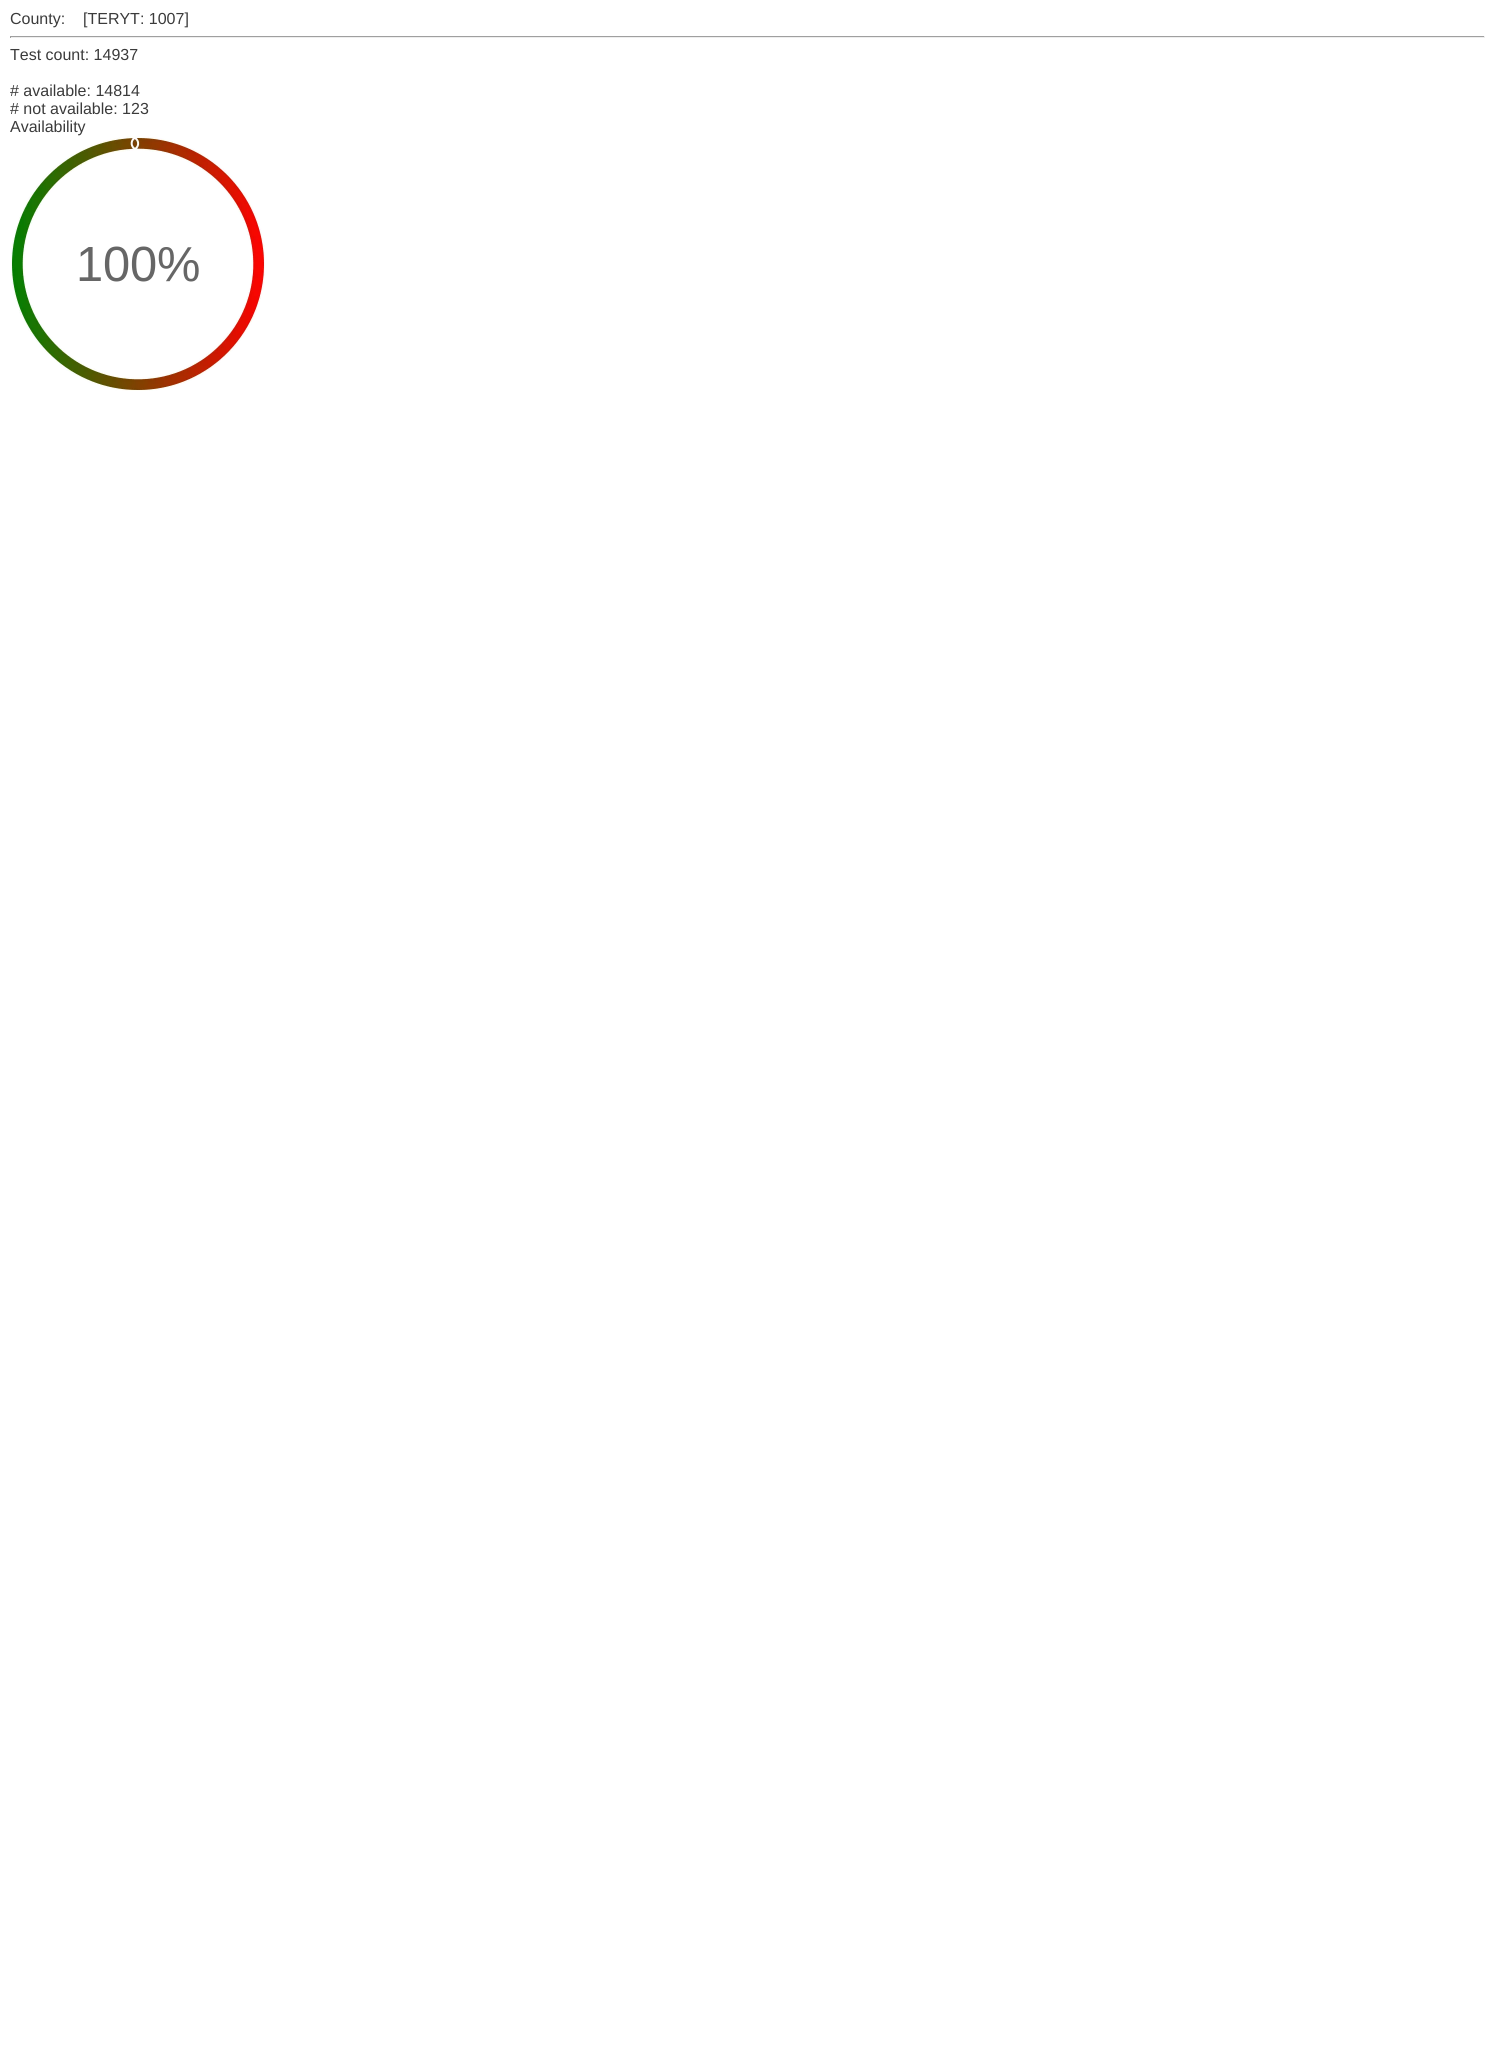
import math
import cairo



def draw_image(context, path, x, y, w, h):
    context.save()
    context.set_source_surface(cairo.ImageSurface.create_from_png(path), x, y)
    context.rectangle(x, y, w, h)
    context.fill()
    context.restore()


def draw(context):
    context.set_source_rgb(1, 1, 1)
    context.paint()
    context.set_source_rgb(159 / 255, 159 / 255, 159 / 255)
    context.rectangle(10, 36, 1475, 1)
    context.fill()
    context.set_source_rgb(238 / 255, 238 / 255, 238 / 255)
    context.rectangle(1484, 36, 1, 2)
    context.fill()
    context.rectangle(10, 37, 1475, 1)
    context.fill()
    context.set_source_rgb(159 / 255, 159 / 255, 159 / 255)
    context.rectangle(10, 36, 1, 2)
    context.fill()
    draw_image(context, "images/1.png", 11, 136, 254, 255)
    context.select_font_face("Liberation Sans")
    context.set_font_size(16)
    context.set_source_rgb(59 / 255, 59 / 255, 59 / 255)
    context.move_to(10, 24)
    context.show_text("County:")
    context.move_to(83, 24)
    context.show_text("[TERYT: 1007]")
    context.move_to(10, 60)
    context.show_text("Test count: 14937")
    context.move_to(10, 96)
    context.show_text("# available: 14814")
    context.move_to(10, 114)
    context.show_text("# not available: 123")
    context.move_to(10, 132)
    context.show_text("Availability")


surface = cairo.ImageSurface(cairo.Format.RGB24, 1495, 2069)
context = cairo.Context(surface)
options = cairo.FontOptions()
options.set_hint_metrics(cairo.HintMetrics.OFF)
options.set_hint_style(cairo.HintStyle.NONE)
context.set_font_options(options)
context.set_miter_limit(4)
draw(context)
surface.write_to_png("out.png")
